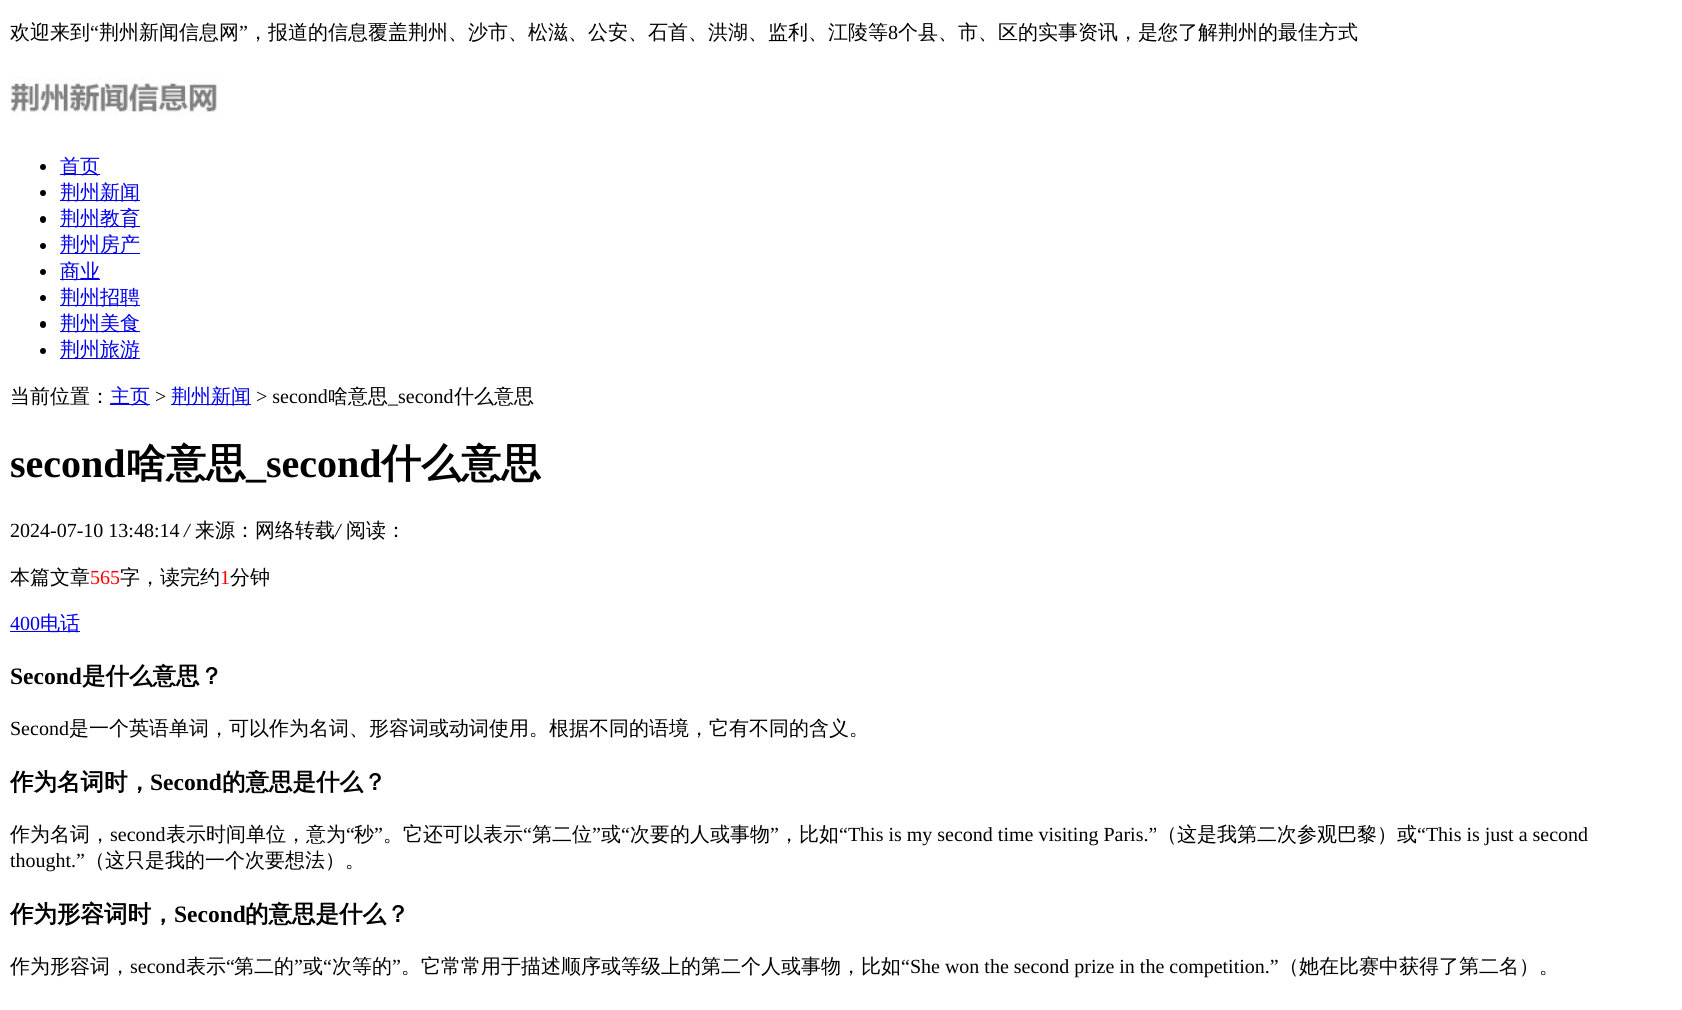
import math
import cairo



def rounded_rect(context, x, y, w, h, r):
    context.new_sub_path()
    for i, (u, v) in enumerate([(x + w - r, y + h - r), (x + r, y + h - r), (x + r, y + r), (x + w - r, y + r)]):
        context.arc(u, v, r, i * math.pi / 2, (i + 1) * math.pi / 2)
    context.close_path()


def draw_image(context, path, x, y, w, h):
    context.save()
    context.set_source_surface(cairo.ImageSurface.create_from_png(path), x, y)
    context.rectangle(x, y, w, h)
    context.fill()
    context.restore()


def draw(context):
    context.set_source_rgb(1, 1, 1)
    context.paint()
    draw_image(context, "images/1.png", 10, 77, 210, 39)
    context.set_source_rgb(0, 0, 0)
    context.arc(43, 167, 3, 0, 2 * math.pi)
    context.fill()
    context.set_source_rgb(0, 0, 238 / 255)
    context.rectangle(60, 174, 40, 1)
    context.fill()
    context.set_source_rgb(0, 0, 0)
    context.arc(43, 193, 3, 0, 2 * math.pi)
    context.fill()
    context.set_source_rgb(0, 0, 238 / 255)
    context.rectangle(60, 200, 80, 1)
    context.fill()
    context.set_source_rgb(0, 0, 0)
    rounded_rect(context, 40, 216, 6, 7, 3)
    context.fill()
    context.set_source_rgb(0, 0, 238 / 255)
    context.rectangle(60, 226, 80, 1)
    context.fill()
    context.set_source_rgb(0, 0, 0)
    context.arc(43, 246, 3, 0, 2 * math.pi)
    context.fill()
    context.set_source_rgb(0, 0, 238 / 255)
    context.rectangle(60, 253, 80, 1)
    context.fill()
    context.set_source_rgb(0, 0, 0)
    context.arc(43, 272, 3, 0, 2 * math.pi)
    context.fill()
    context.set_source_rgb(0, 0, 238 / 255)
    context.rectangle(60, 279, 40, 1)
    context.fill()
    context.set_source_rgb(0, 0, 0)
    context.arc(43, 298, 3, 0, 2 * math.pi)
    context.fill()
    context.set_source_rgb(0, 0, 238 / 255)
    context.rectangle(60, 305, 80, 1)
    context.fill()
    context.set_source_rgb(0, 0, 0)
    rounded_rect(context, 40, 321, 6, 7, 3)
    context.fill()
    context.set_source_rgb(0, 0, 238 / 255)
    context.rectangle(60, 331, 80, 1)
    context.fill()
    context.set_source_rgb(0, 0, 0)
    context.arc(43, 351, 3, 0, 2 * math.pi)
    context.fill()
    context.set_source_rgb(0, 0, 238 / 255)
    context.rectangle(60, 358, 80, 1)
    context.fill()
    context.rectangle(110, 404, 40, 1)
    context.fill()
    context.rectangle(171, 404, 80, 1)
    context.fill()
    context.rectangle(10, 631, 70, 1)
    context.fill()
    context.select_font_face("WenQuanYi Zen Hei Medium")
    context.set_font_size(20)
    context.set_source_rgb(0, 0, 0)
    context.move_to(10, 39)
    context.show_text("欢迎来到")
    context.select_font_face("Liberation Serif")
    context.move_to(90, 39)
    context.show_text("“")
    context.select_font_face("WenQuanYi Zen Hei Medium")
    context.move_to(99, 39)
    context.show_text("荆州新闻信息网")
    context.select_font_face("Liberation Serif")
    context.move_to(239, 39)
    context.show_text("”")
    context.select_font_face("WenQuanYi Zen Hei Medium")
    context.move_to(248, 39)
    context.show_text("，报道的信息覆盖荆州、沙市、松滋、公安、石首、洪湖、监利、江陵等")
    context.select_font_face("Liberation Serif")
    context.move_to(888, 39)
    context.show_text("8")
    context.select_font_face("WenQuanYi Zen Hei Medium")
    context.move_to(898, 39)
    context.show_text("个县、市、区的实事资讯，是您了解荆州的最佳方式")
    context.set_source_rgb(0, 0, 238 / 255)
    context.move_to(60, 173)
    context.show_text("首页")
    context.move_to(60, 199)
    context.show_text("荆州新闻")
    context.move_to(60, 225)
    context.show_text("荆州教育")
    context.move_to(60, 251)
    context.show_text("荆州房产")
    context.move_to(60, 278)
    context.show_text("商业")
    context.move_to(60, 304)
    context.show_text("荆州招聘")
    context.move_to(60, 330)
    context.show_text("荆州美食")
    context.move_to(60, 356)
    context.show_text("荆州旅游")
    context.set_source_rgb(0, 0, 0)
    context.move_to(10, 403)
    context.show_text("当前位置：")
    context.set_source_rgb(0, 0, 238 / 255)
    context.move_to(110, 403)
    context.show_text("主页")
    context.select_font_face("Liberation Serif")
    context.set_source_rgb(0, 0, 0)
    context.move_to(155, 403)
    context.show_text(">")
    context.select_font_face("WenQuanYi Zen Hei Medium")
    context.set_source_rgb(0, 0, 238 / 255)
    context.move_to(171, 403)
    context.show_text("荆州新闻")
    context.select_font_face("Liberation Serif")
    context.set_source_rgb(0, 0, 0)
    context.move_to(256, 403)
    context.show_text("> second")
    context.select_font_face("WenQuanYi Zen Hei Medium")
    context.move_to(328, 403)
    context.show_text("啥意思")
    context.select_font_face("Liberation Serif")
    context.move_to(388, 403)
    context.show_text("_second")
    context.select_font_face("WenQuanYi Zen Hei Medium")
    context.move_to(454, 403)
    context.show_text("什么意思")
    context.select_font_face("Liberation Serif", cairo.FontSlant.NORMAL, cairo.FontWeight.BOLD)
    context.set_font_size(40)
    context.move_to(10, 477)
    context.show_text("second")
    context.select_font_face("WenQuanYi Zen Hei", cairo.FontSlant.NORMAL, cairo.FontWeight.BOLD)
    context.move_to(126, 477)
    context.show_text("啥意思")
    context.select_font_face("Liberation Serif", cairo.FontSlant.NORMAL, cairo.FontWeight.BOLD)
    context.move_to(246, 477)
    context.show_text("_second")
    context.select_font_face("WenQuanYi Zen Hei", cairo.FontSlant.NORMAL, cairo.FontWeight.BOLD)
    context.move_to(381, 477)
    context.show_text("什么意思")
    context.select_font_face("Liberation Serif")
    context.set_font_size(20)
    context.move_to(10, 537)
    context.show_text("2024-07-10 13:48:14")
    context.select_font_face("Liberation Serif", cairo.FontSlant.ITALIC)
    context.move_to(184, 537)
    context.show_text("/")
    context.select_font_face("WenQuanYi Zen Hei Medium")
    context.move_to(195, 537)
    context.show_text("来源：网络转载")
    context.select_font_face("Liberation Serif", cairo.FontSlant.ITALIC)
    context.move_to(335, 537)
    context.show_text("/")
    context.select_font_face("WenQuanYi Zen Hei Medium")
    context.move_to(346, 537)
    context.show_text("阅读：")
    context.move_to(10, 584)
    context.show_text("本篇文章")
    context.select_font_face("Liberation Serif")
    context.set_source_rgb(1, 0, 0)
    context.move_to(90, 584)
    context.show_text("565")
    context.select_font_face("WenQuanYi Zen Hei Medium")
    context.set_source_rgb(0, 0, 0)
    context.move_to(120, 584)
    context.show_text("字，读完约")
    context.select_font_face("Liberation Serif")
    context.set_source_rgb(1, 0, 0)
    context.move_to(220, 584)
    context.show_text("1")
    context.select_font_face("WenQuanYi Zen Hei Medium")
    context.set_source_rgb(0, 0, 0)
    context.move_to(230, 584)
    context.show_text("分钟")
    context.select_font_face("Liberation Serif")
    context.set_source_rgb(0, 0, 238 / 255)
    context.move_to(10, 630)
    context.show_text("400")
    context.select_font_face("WenQuanYi Zen Hei Medium")
    context.move_to(40, 630)
    context.show_text("电话")
    context.select_font_face("Liberation Serif", cairo.FontSlant.NORMAL, cairo.FontWeight.BOLD)
    context.set_font_size(23.5)
    context.set_source_rgb(0, 0, 0)
    context.move_to(10, 684)
    context.show_text("Second")
    context.select_font_face("WenQuanYi Zen Hei", cairo.FontSlant.NORMAL, cairo.FontWeight.BOLD)
    context.move_to(82, 684)
    context.show_text("是什么意思？")
    context.select_font_face("Liberation Serif")
    context.set_font_size(20)
    context.move_to(10, 735)
    context.show_text("Second")
    context.select_font_face("WenQuanYi Zen Hei Medium")
    context.move_to(69, 735)
    context.show_text("是一个英语单词，可以作为名词、形容词或动词使用。根据不同的语境，它有不同的含义。")
    context.select_font_face("WenQuanYi Zen Hei", cairo.FontSlant.NORMAL, cairo.FontWeight.BOLD)
    context.set_font_size(23.5)
    context.move_to(10, 790)
    context.show_text("作为名词时，")
    context.select_font_face("Liberation Serif", cairo.FontSlant.NORMAL, cairo.FontWeight.BOLD)
    context.move_to(150, 790)
    context.show_text("Second")
    context.select_font_face("WenQuanYi Zen Hei", cairo.FontSlant.NORMAL, cairo.FontWeight.BOLD)
    context.move_to(222, 790)
    context.show_text("的意思是什么？")
    context.select_font_face("WenQuanYi Zen Hei Medium")
    context.set_font_size(20)
    context.move_to(10, 841)
    context.show_text("作为名词，")
    context.select_font_face("Liberation Serif")
    context.move_to(110, 841)
    context.show_text("second")
    context.select_font_face("WenQuanYi Zen Hei Medium")
    context.move_to(166, 841)
    context.show_text("表示时间单位，意为")
    context.select_font_face("Liberation Serif")
    context.move_to(346, 841)
    context.show_text("“")
    context.select_font_face("WenQuanYi Zen Hei Medium")
    context.move_to(354, 841)
    context.show_text("秒")
    context.select_font_face("Liberation Serif")
    context.move_to(374, 841)
    context.show_text("”")
    context.select_font_face("WenQuanYi Zen Hei Medium")
    context.move_to(383, 841)
    context.show_text("。它还可以表示")
    context.select_font_face("Liberation Serif")
    context.move_to(523, 841)
    context.show_text("“")
    context.select_font_face("WenQuanYi Zen Hei Medium")
    context.move_to(532, 841)
    context.show_text("第二位")
    context.select_font_face("Liberation Serif")
    context.move_to(592, 841)
    context.show_text("”")
    context.select_font_face("WenQuanYi Zen Hei Medium")
    context.move_to(601, 841)
    context.show_text("或")
    context.select_font_face("Liberation Serif")
    context.move_to(621, 841)
    context.show_text("“")
    context.select_font_face("WenQuanYi Zen Hei Medium")
    context.move_to(630, 841)
    context.show_text("次要的人或事物")
    context.select_font_face("Liberation Serif")
    context.move_to(770, 841)
    context.show_text("”")
    context.select_font_face("WenQuanYi Zen Hei Medium")
    context.move_to(779, 841)
    context.show_text("，比如")
    context.select_font_face("Liberation Serif")
    context.move_to(839, 841)
    context.show_text("“This is my second time visiting Paris.”")
    context.select_font_face("WenQuanYi Zen Hei Medium")
    context.move_to(1157, 841)
    context.show_text("（这是我第二次参观巴黎）或")
    context.select_font_face("Liberation Serif")
    context.move_to(1417, 841)
    context.show_text("“This is just a second")
    context.move_to(10, 867)
    context.show_text("thought.”")
    context.select_font_face("WenQuanYi Zen Hei Medium")
    context.move_to(85, 867)
    context.show_text("（这只是我的一个次要想法）。")
    context.select_font_face("WenQuanYi Zen Hei", cairo.FontSlant.NORMAL, cairo.FontWeight.BOLD)
    context.set_font_size(23.5)
    context.move_to(10, 922)
    context.show_text("作为形容词时，")
    context.select_font_face("Liberation Serif", cairo.FontSlant.NORMAL, cairo.FontWeight.BOLD)
    context.move_to(174, 922)
    context.show_text("Second")
    context.select_font_face("WenQuanYi Zen Hei", cairo.FontSlant.NORMAL, cairo.FontWeight.BOLD)
    context.move_to(245, 922)
    context.show_text("的意思是什么？")
    context.select_font_face("WenQuanYi Zen Hei Medium")
    context.set_font_size(20)
    context.move_to(10, 973)
    context.show_text("作为形容词，")
    context.select_font_face("Liberation Serif")
    context.move_to(130, 973)
    context.show_text("second")
    context.select_font_face("WenQuanYi Zen Hei Medium")
    context.move_to(186, 973)
    context.show_text("表示")
    context.select_font_face("Liberation Serif")
    context.move_to(226, 973)
    context.show_text("“")
    context.select_font_face("WenQuanYi Zen Hei Medium")
    context.move_to(234, 973)
    context.show_text("第二的")
    context.select_font_face("Liberation Serif")
    context.move_to(294, 973)
    context.show_text("”")
    context.select_font_face("WenQuanYi Zen Hei Medium")
    context.move_to(303, 973)
    context.show_text("或")
    context.select_font_face("Liberation Serif")
    context.move_to(323, 973)
    context.show_text("“")
    context.select_font_face("WenQuanYi Zen Hei Medium")
    context.move_to(332, 973)
    context.show_text("次等的")
    context.select_font_face("Liberation Serif")
    context.move_to(392, 973)
    context.show_text("”")
    context.select_font_face("WenQuanYi Zen Hei Medium")
    context.move_to(401, 973)
    context.show_text("。它常常用于描述顺序或等级上的第二个人或事物，比如")
    context.select_font_face("Liberation Serif")
    context.move_to(901, 973)
    context.show_text("“She won the second prize in the competition.”")
    context.select_font_face("WenQuanYi Zen Hei Medium")
    context.move_to(1279, 973)
    context.show_text("（她在比赛中获得了第二名）。")


surface = cairo.ImageSurface(cairo.Format.RGB24, 1682, 1010)
context = cairo.Context(surface)
options = cairo.FontOptions()
options.set_hint_metrics(cairo.HintMetrics.OFF)
options.set_hint_style(cairo.HintStyle.NONE)
context.set_font_options(options)
context.set_miter_limit(4)
draw(context)
surface.write_to_png("out.png")
